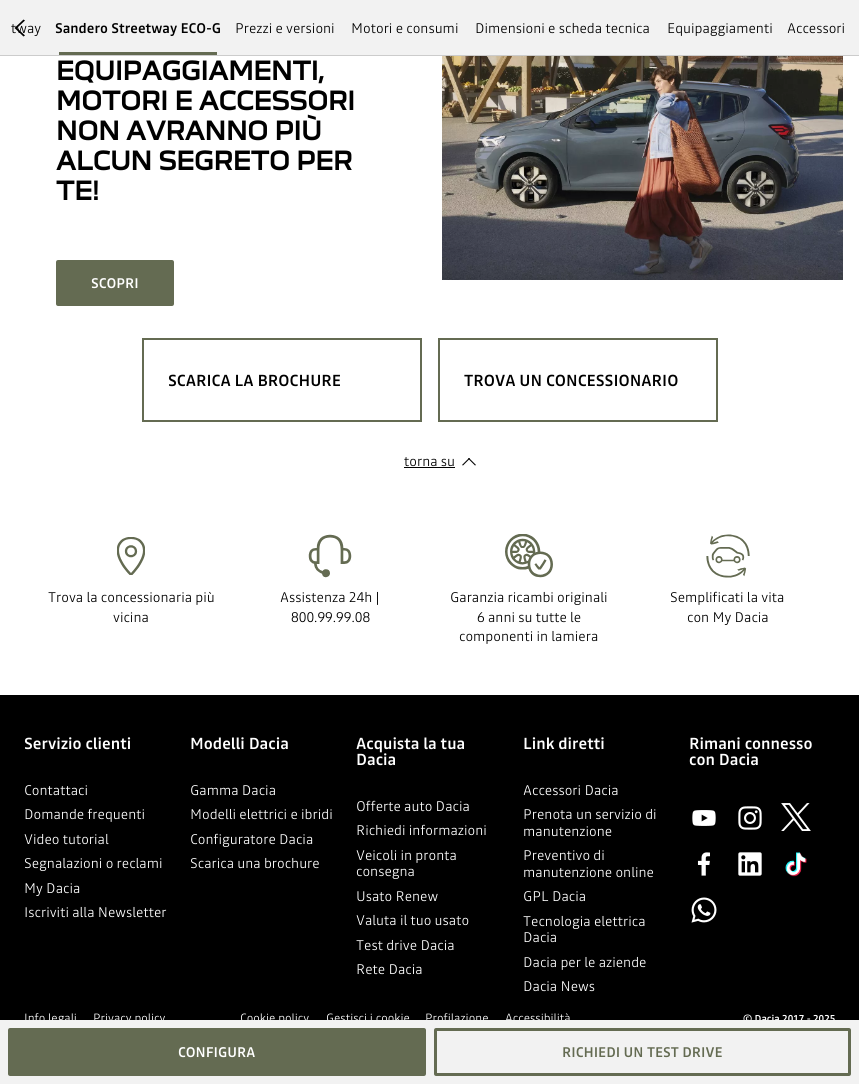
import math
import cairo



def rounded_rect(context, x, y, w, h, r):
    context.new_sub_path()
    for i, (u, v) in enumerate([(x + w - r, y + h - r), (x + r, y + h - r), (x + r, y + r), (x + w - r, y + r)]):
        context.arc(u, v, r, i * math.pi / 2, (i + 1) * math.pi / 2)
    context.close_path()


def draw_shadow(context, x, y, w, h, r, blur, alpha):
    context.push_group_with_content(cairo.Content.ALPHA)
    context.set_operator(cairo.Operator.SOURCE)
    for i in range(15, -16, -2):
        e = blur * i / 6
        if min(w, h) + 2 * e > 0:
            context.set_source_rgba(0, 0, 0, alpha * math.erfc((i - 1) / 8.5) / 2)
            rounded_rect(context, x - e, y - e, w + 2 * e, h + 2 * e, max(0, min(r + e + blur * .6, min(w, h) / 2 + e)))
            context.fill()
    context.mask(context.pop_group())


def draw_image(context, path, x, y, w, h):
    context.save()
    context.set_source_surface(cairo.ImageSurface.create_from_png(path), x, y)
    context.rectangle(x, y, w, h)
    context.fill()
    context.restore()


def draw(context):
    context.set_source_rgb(1, 1, 1)
    context.paint()
    context.set_source_rgb(242 / 255, 242 / 255, 242 / 255)
    context.rectangle(0, 0, 859, 55)
    context.fill()
    context.set_source_rgb(204 / 255, 204 / 255, 204 / 255)
    context.rectangle(0, 55, 859, 1)
    context.fill()
    context.set_source_rgb(0, 0, 0)
    context.new_path()
    context.move_to(23.5, 36.5)
    context.line_to(14.5, 28)
    context.line_to(23.5, 19.5)
    context.line_to(25, 20.5)
    context.line_to(17, 28)
    context.line_to(25, 35.5)
    context.close_path()
    context.fill()
    context.set_source_rgb(100 / 255, 107 / 255, 82 / 255)
    context.rectangle(59, 52, 158, 3)
    context.fill()
    context.set_source_rgb(0, 0, 0)
    context.rectangle(0, 695, 859, 325)
    context.fill()
    context.set_source_rgb(0, 0, 0)
    draw_shadow(context, 0, 1023, 859, 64, 0, 5, 0.1)
    context.set_source_rgb(100 / 255, 107 / 255, 82 / 255)
    rounded_rect(context, 57.5, 261.5, 115, 43, 0.5)
    context.fill_preserve()
    context.set_line_width(3)
    context.stroke()
    draw_image(context, "images/1.png", 442, 56, 401, 224)
    context.rectangle(143, 339, 278, 82)
    context.set_line_width(2)
    context.stroke()
    context.rectangle(439, 339, 278, 82)
    context.stroke()
    context.set_source_rgb(0, 0, 0)
    context.rectangle(404, 467, 51, 1)
    context.fill()
    context.new_path()
    context.move_to(462, 465)
    context.line_to(469, 458)
    context.line_to(470, 458.5)
    context.line_to(463, 465.5)
    context.close_path()
    context.fill()
    context.new_path()
    context.move_to(469, 458)
    context.line_to(476, 465)
    context.line_to(475, 465.5)
    context.line_to(468, 458.5)
    context.close_path()
    context.fill()
    draw_image(context, "images/2.png", 117, 537, 28, 38)
    draw_image(context, "images/3.png", 308, 534, 44, 44)
    draw_image(context, "images/4.png", 505, 534, 48, 44)
    draw_image(context, "images/5.png", 706, 534, 44, 44)
    draw_image(context, "images/6.png", 692, 810, 24, 16)
    draw_image(context, "images/7.png", 738, 806, 24, 24)
    draw_image(context, "images/8.png", 781, 803, 30, 28)
    draw_image(context, "images/9.png", 697, 852, 13, 24)
    draw_image(context, "images/10.png", 738, 852, 24, 24)
    draw_image(context, "images/11.png", 785, 852, 22, 25)
    draw_image(context, "images/12.png", 691, 897, 26, 26)
    context.select_font_face("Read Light")
    context.set_font_size(14)
    context.move_to(11, 33)
    context.show_text("tway")
    context.select_font_face("Read Medium")
    context.move_to(55, 33)
    context.show_text("Sandero Streetway ECO-G")
    context.select_font_face("Read Light")
    context.move_to(235, 33)
    context.show_text("Prezzi e versioni")
    context.move_to(351, 33)
    context.show_text("Motori e consumi")
    context.move_to(475, 33)
    context.show_text("Dimensioni e scheda tecnica")
    context.move_to(667, 33)
    context.show_text("Equipaggiamenti")
    context.move_to(787, 33)
    context.show_text("Accessori")
    context.select_font_face("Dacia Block", cairo.FontSlant.NORMAL, cairo.FontWeight.BOLD)
    context.set_font_size(25)
    context.move_to(56, 80)
    context.show_text("EQUIPAGGIAMENTI,")
    context.move_to(56, 110)
    context.show_text("MOTORI E ACCESSORI")
    context.move_to(56, 140)
    context.show_text("NON AVRANNO PIÙ")
    context.move_to(56, 170)
    context.show_text("ALCUN SEGRETO PER")
    context.move_to(56, 200)
    context.show_text("TE!")
    context.select_font_face("Read Medium")
    context.set_font_size(14)
    context.set_source_rgb(1, 1, 1)
    context.move_to(91, 288)
    context.show_text("SCOPRI")
    context.set_font_size(16)
    context.set_source_rgb(0, 0, 0)
    context.move_to(168, 386)
    context.show_text("SCARICA LA BROCHURE")
    context.move_to(464, 386)
    context.show_text("TROVA UN CONCESSIONARIO")
    context.select_font_face("Read Light")
    context.set_font_size(14)
    context.move_to(404, 466)
    context.show_text("torna su")
    context.move_to(48, 602)
    context.show_text("Trova la concessionaria più")
    context.move_to(113, 622)
    context.show_text("vicina")
    context.move_to(280, 602)
    context.show_text("Assistenza 24h |")
    context.move_to(291, 622)
    context.show_text("800.99.99.08")
    context.move_to(450, 602)
    context.show_text("Garanzia ricambi originali")
    context.move_to(477, 622)
    context.show_text("6 anni su tutte le")
    context.move_to(459, 641)
    context.show_text("componenti in lamiera")
    context.move_to(670, 602)
    context.show_text("Semplificati la vita")
    context.move_to(687, 622)
    context.show_text("con My Dacia")
    context.select_font_face("Read Medium")
    context.set_font_size(16)
    context.set_source_rgb(1, 1, 1)
    context.move_to(24, 749)
    context.show_text("Servizio clienti")
    context.select_font_face("Read Light")
    context.set_font_size(14)
    context.move_to(24, 795)
    context.show_text("Contattaci")
    context.move_to(24, 819)
    context.show_text("Domande frequenti")
    context.move_to(24, 844)
    context.show_text("Video tutorial")
    context.move_to(24, 868)
    context.show_text("Segnalazioni o reclami")
    context.move_to(24, 893)
    context.show_text("My Dacia")
    context.move_to(24, 917)
    context.show_text("Iscriviti alla Newsletter")
    context.select_font_face("Read Medium")
    context.set_font_size(16)
    context.move_to(190, 749)
    context.show_text("Modelli Dacia")
    context.select_font_face("Read Light")
    context.set_font_size(14)
    context.move_to(190, 795)
    context.show_text("Gamma Dacia")
    context.move_to(190, 819)
    context.show_text("Modelli elettrici e ibridi")
    context.move_to(190, 844)
    context.show_text("Configuratore Dacia")
    context.move_to(190, 868)
    context.show_text("Scarica una brochure")
    context.select_font_face("Read Medium")
    context.set_font_size(16)
    context.move_to(356, 749)
    context.show_text("Acquista la tua")
    context.move_to(356, 765)
    context.show_text("Dacia")
    context.select_font_face("Read Light")
    context.set_font_size(14)
    context.move_to(356, 811)
    context.show_text("Offerte auto Dacia")
    context.move_to(356, 835)
    context.show_text("Richiedi informazioni")
    context.move_to(356, 860)
    context.show_text("Veicoli in pronta")
    context.move_to(356, 876)
    context.show_text("consegna")
    context.move_to(356, 901)
    context.show_text("Usato Renew")
    context.move_to(356, 925)
    context.show_text("Valuta il tuo usato")
    context.move_to(356, 950)
    context.show_text("Test drive Dacia")
    context.move_to(356, 974)
    context.show_text("Rete Dacia")
    context.select_font_face("Read Medium")
    context.set_font_size(16)
    context.move_to(523, 749)
    context.show_text("Link diretti")
    context.select_font_face("Read Light")
    context.set_font_size(14)
    context.move_to(523, 795)
    context.show_text("Accessori Dacia")
    context.move_to(523, 819)
    context.show_text("Prenota un servizio di")
    context.move_to(523, 836)
    context.show_text("manutenzione")
    context.move_to(523, 860)
    context.show_text("Preventivo di")
    context.move_to(523, 877)
    context.show_text("manutenzione online")
    context.move_to(523, 901)
    context.show_text("GPL Dacia")
    context.move_to(523, 926)
    context.show_text("Tecnologia elettrica")
    context.move_to(523, 942)
    context.show_text("Dacia")
    context.move_to(523, 967)
    context.show_text("Dacia per le aziende")
    context.move_to(523, 991)
    context.show_text("Dacia News")
    context.select_font_face("Read Medium")
    context.set_font_size(16)
    context.move_to(689, 749)
    context.show_text("Rimani connesso")
    context.move_to(689, 765)
    context.show_text("con Dacia")
    context.select_font_face("Read Light")
    context.set_font_size(12)
    context.move_to(24, 1022)
    context.show_text("Info legali")
    context.move_to(93, 1022)
    context.show_text("Privacy policy")
    context.move_to(240, 1022)
    context.show_text("Cookie policy")
    context.move_to(326, 1022)
    context.show_text("Gestisci i cookie")
    context.move_to(425, 1022)
    context.show_text("Profilazione")
    context.move_to(505, 1022)
    context.show_text("Accessibilità")
    context.select_font_face("Read Medium")
    context.set_font_size(10)
    context.move_to(743, 1022)
    context.show_text("© Dacia 2017 - 2025")
    context.set_source_rgb(242 / 255, 242 / 255, 242 / 255)
    context.rectangle(0, 1020, 859, 64)
    context.fill()
    rounded_rect(context, 435.5, 1029.5, 414, 45, 0.5)
    context.set_source_rgb(100 / 255, 107 / 255, 82 / 255)
    context.set_line_width(3)
    context.stroke()
    context.set_font_size(14)
    context.move_to(562, 1057)
    context.show_text("RICHIEDI UN TEST DRIVE")
    rounded_rect(context, 9.5, 1029.5, 415, 45, 0.5)
    context.fill_preserve()
    context.stroke()
    context.set_source_rgb(1, 1, 1)
    context.move_to(178, 1057)
    context.show_text("CONFIGURA")


surface = cairo.ImageSurface(cairo.Format.RGB24, 859, 1084)
context = cairo.Context(surface)
options = cairo.FontOptions()
options.set_hint_metrics(cairo.HintMetrics.OFF)
options.set_hint_style(cairo.HintStyle.NONE)
context.set_font_options(options)
context.set_miter_limit(4)
draw(context)
surface.write_to_png("out.png")
